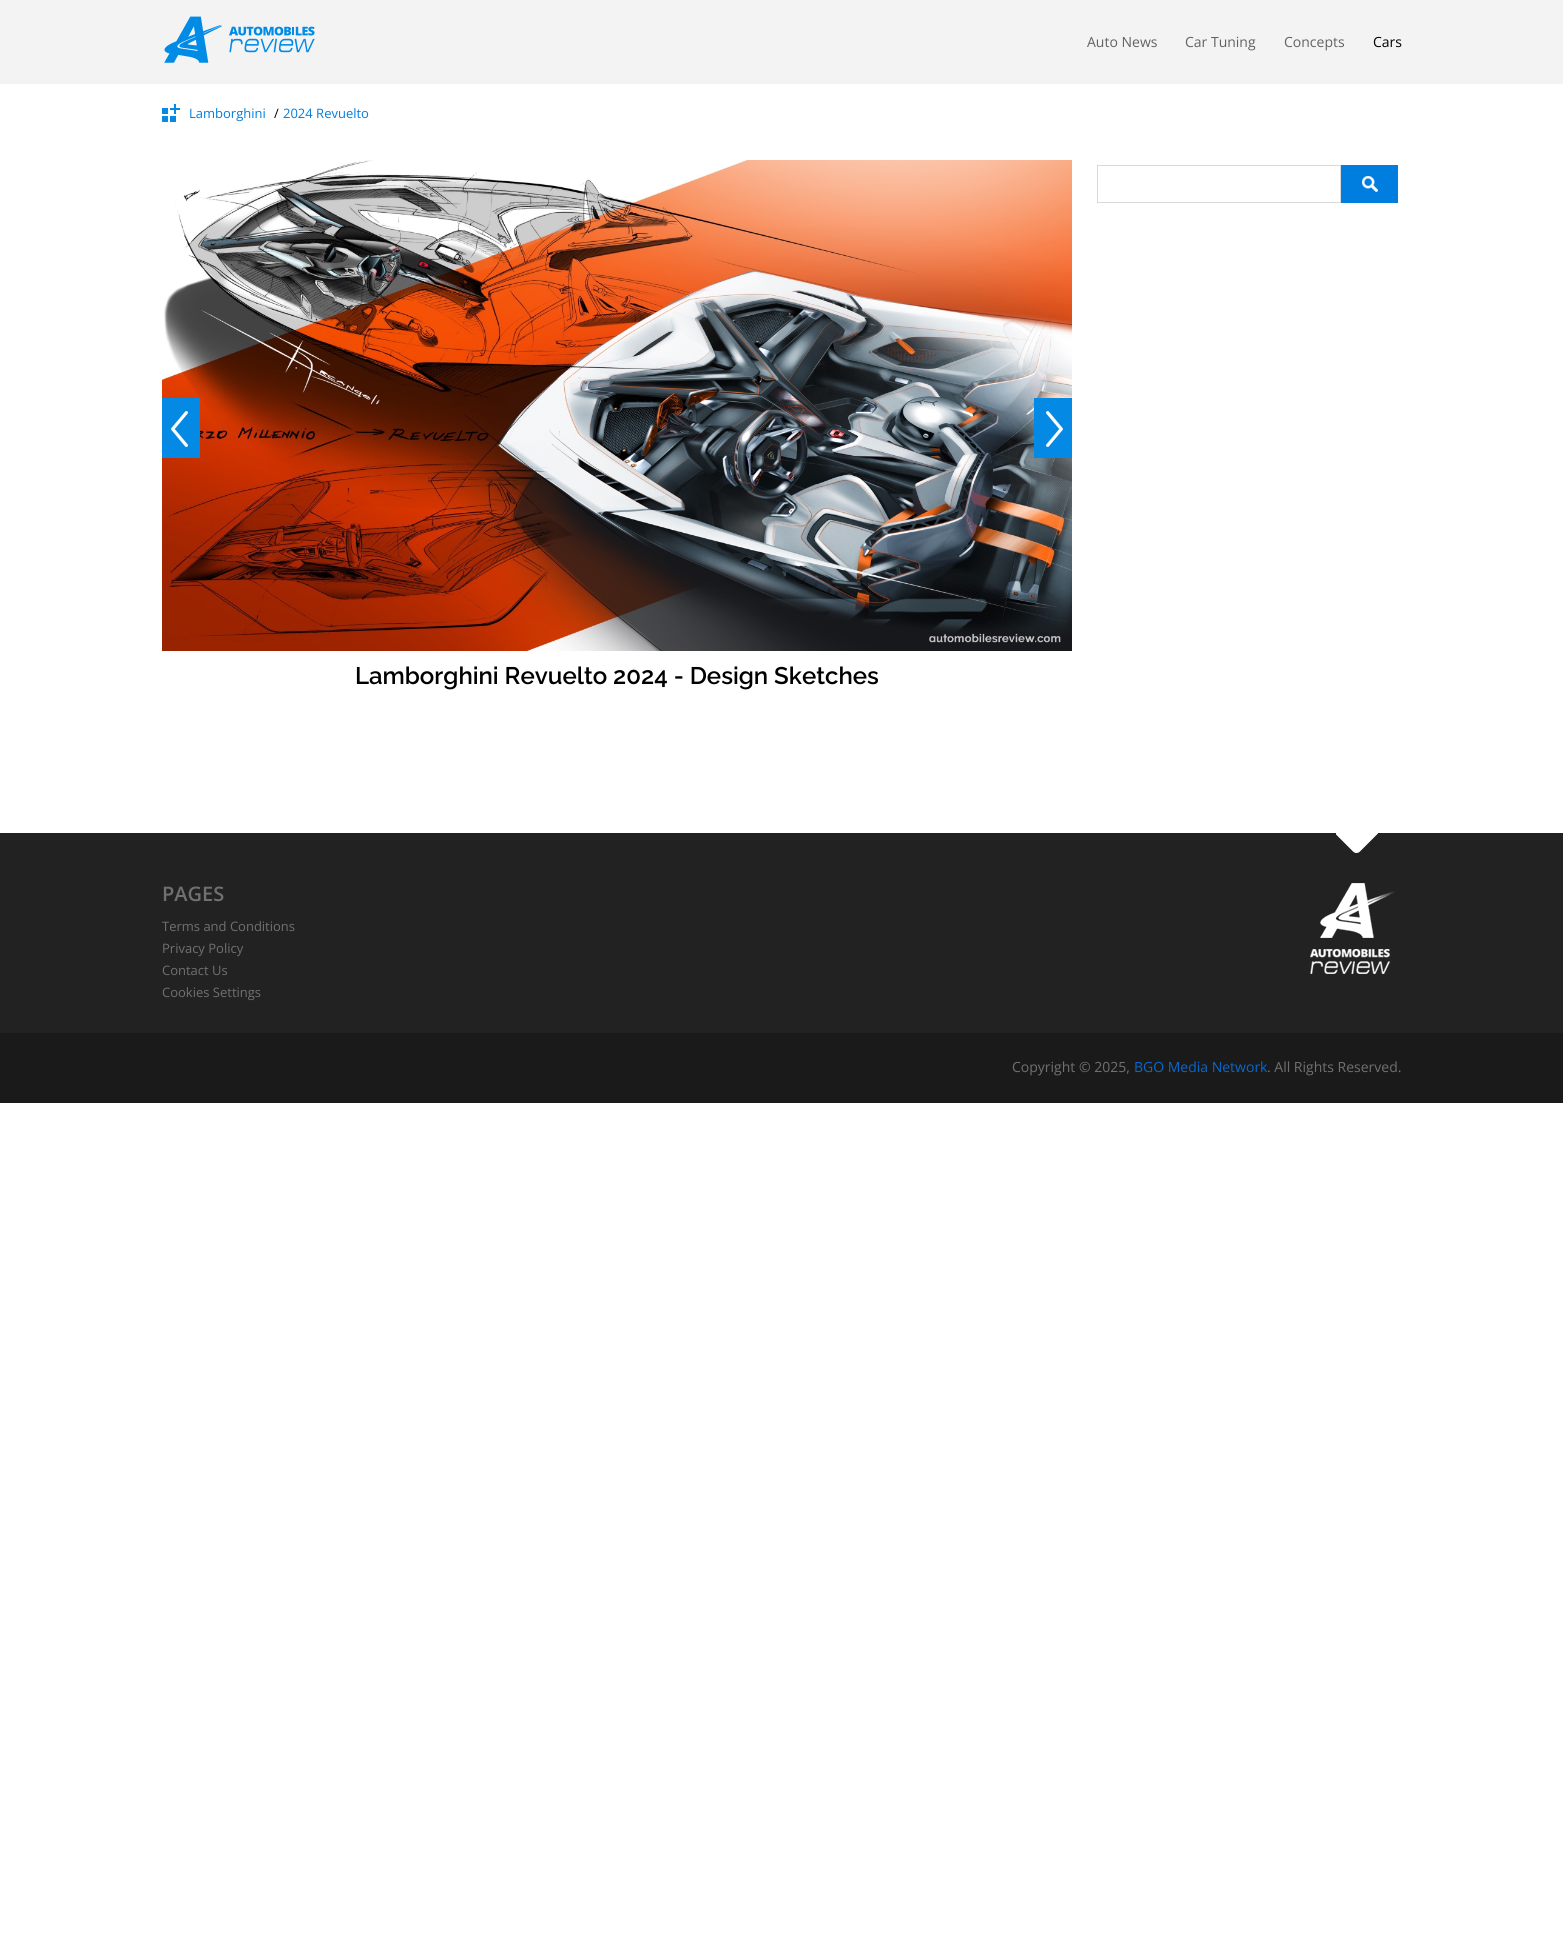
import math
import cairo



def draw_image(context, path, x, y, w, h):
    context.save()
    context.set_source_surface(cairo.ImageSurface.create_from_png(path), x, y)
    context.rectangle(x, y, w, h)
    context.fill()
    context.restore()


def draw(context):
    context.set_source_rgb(1, 1, 1)
    context.paint()
    context.set_source_rgb(243 / 255, 243 / 255, 243 / 255)
    context.rectangle(0, 0, 1563, 84)
    context.fill()
    draw_image(context, "images/1.png", 164, 16, 151, 47)
    draw_image(context, "images/2.png", 162, 104, 18, 18)
    context.rectangle(1097.5, 165.5, 243, 37)
    context.set_source_rgb(217 / 255, 217 / 255, 217 / 255)
    context.set_line_width(1)
    context.stroke()
    draw_image(context, "images/3.png", 1341, 165, 57, 38)
    draw_image(context, "images/6.png", 162, 160, 910, 491)
    context.set_source_rgb(4 / 255, 137 / 255, 228 / 255)
    context.rectangle(162, 398, 38, 60)
    context.fill()
    draw_image(context, "images/4.png", 171, 411, 17, 36)
    context.rectangle(1034, 398, 38, 60)
    context.fill()
    draw_image(context, "images/5.png", 1046, 411, 17, 36)
    context.set_source_rgb(34 / 255, 34 / 255, 34 / 255)
    context.rectangle(0, 833, 1563, 200)
    context.fill()
    draw_image(context, "images/7.png", 1336, 833, 42, 20)
    draw_image(context, "images/8.png", 1310, 883, 85, 91)
    context.set_source_rgb(26 / 255, 26 / 255, 26 / 255)
    context.rectangle(0, 1033, 1563, 70)
    context.fill()
    context.select_font_face("Open Sans")
    context.set_font_size(14)
    context.set_source_rgb(98 / 255, 98 / 255, 98 / 255)
    context.move_to(1087, 47)
    context.show_text("Auto News")
    context.move_to(1185, 47)
    context.show_text("Car Tuning")
    context.move_to(1284, 47)
    context.show_text("Concepts")
    context.set_source_rgb(0, 0, 0)
    context.move_to(1373, 47)
    context.show_text("Cars")
    context.set_font_size(13)
    context.set_source_rgb(0, 126 / 255, 224 / 255)
    context.move_to(189, 118)
    context.show_text("Lamborghini")
    context.set_source_rgb(0, 0, 0)
    context.move_to(274, 118)
    context.show_text("/")
    context.set_source_rgb(0, 126 / 255, 224 / 255)
    context.move_to(283, 118)
    context.show_text("2024 Revuelto")
    context.select_font_face("Raleway SemiBold")
    context.set_font_size(24)
    context.set_source_rgb(0, 0, 0)
    context.move_to(355, 684)
    context.show_text("Lamborghini Revuelto 2024 - Design Sketches")
    context.select_font_face("Open Sans SemiBold")
    context.set_font_size(20)
    context.set_source_rgb(112 / 255, 112 / 255, 112 / 255)
    context.move_to(162, 901)
    context.show_text("PAGES")
    context.select_font_face("Open Sans")
    context.set_font_size(13)
    context.move_to(162, 931)
    context.show_text("Terms and Conditions")
    context.move_to(162, 953)
    context.show_text("Privacy Policy")
    context.move_to(162, 975)
    context.show_text("Contact Us")
    context.move_to(162, 997)
    context.show_text("Cookies Settings")
    context.set_font_size(14)
    context.move_to(1012, 1072)
    context.show_text("Copyright © 2025,")
    context.set_source_rgb(8 / 255, 104 / 255, 206 / 255)
    context.move_to(1134, 1072)
    context.show_text("BGO Media Network")
    context.set_source_rgb(112 / 255, 112 / 255, 112 / 255)
    context.move_to(1267, 1072)
    context.show_text(". All Rights Reserved.")


surface = cairo.ImageSurface(cairo.Format.RGB24, 1563, 1947)
context = cairo.Context(surface)
options = cairo.FontOptions()
options.set_hint_metrics(cairo.HintMetrics.OFF)
options.set_hint_style(cairo.HintStyle.NONE)
context.set_font_options(options)
context.set_miter_limit(4)
draw(context)
surface.write_to_png("out.png")
